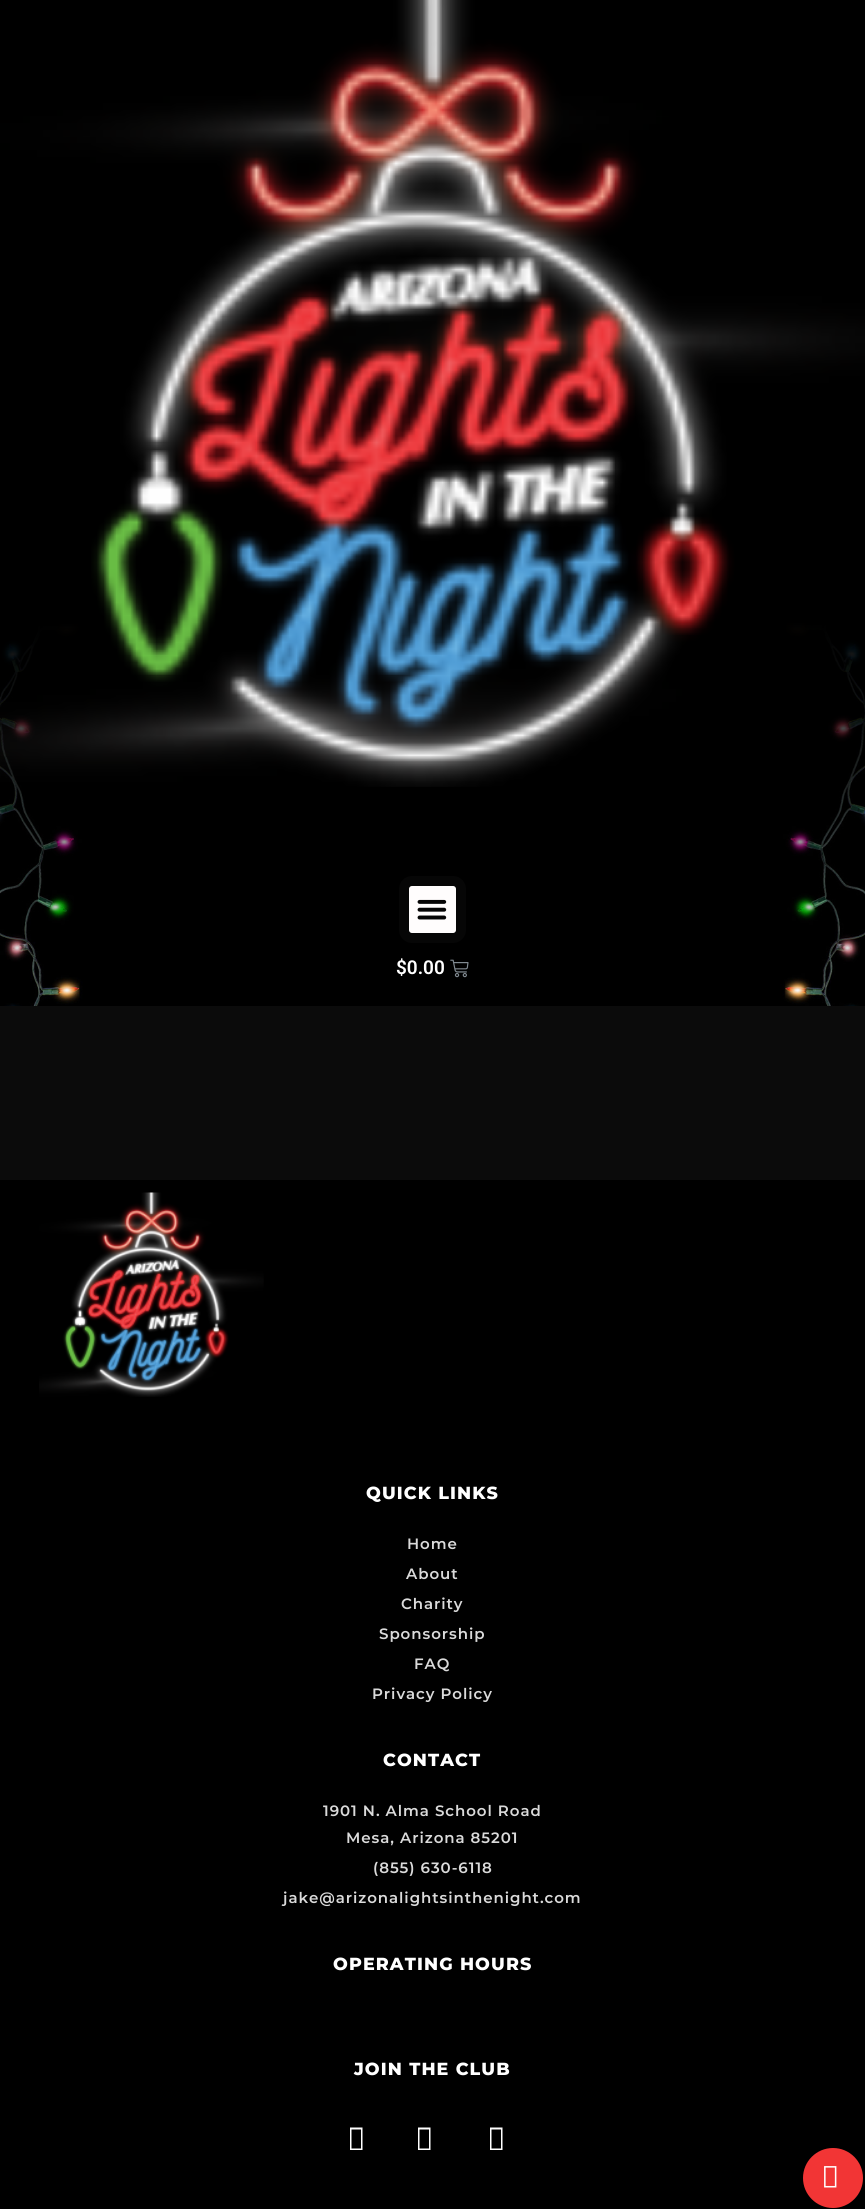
import math
import cairo



def draw_spaced(context, x, y, s, letter, word):
    context.move_to(x, y)
    for ch in s:
        context.show_text(ch)
        context.rel_move_to(letter + word * (ch == ' '), 0)


def rounded_rect(context, x, y, w, h, r):
    context.new_sub_path()
    for i, (u, v) in enumerate([(x + w - r, y + h - r), (x + r, y + h - r), (x + r, y + r), (x + w - r, y + r)]):
        context.arc(u, v, r, i * math.pi / 2, (i + 1) * math.pi / 2)
    context.close_path()


def draw_image(context, path, x, y, w, h):
    context.save()
    context.set_source_surface(cairo.ImageSurface.create_from_png(path), x, y)
    context.rectangle(x, y, w, h)
    context.fill()
    context.restore()


def draw(context):
    context.set_source_rgb(1, 1, 1)
    context.paint()
    draw_image(context, "images/1.png", 0, 0, 865, 1006)
    draw_image(context, "images/2.png", 0, 0, 865, 787)
    context.set_source_rgb(1, 253 / 255, 253 / 255)
    rounded_rect(context, 404, 881, 57, 57, 8)
    context.fill_preserve()
    context.set_source_rgb(6 / 255, 6 / 255, 6 / 255)
    context.set_line_width(10)
    context.stroke()
    draw_image(context, "images/3.png", 417, 899, 30, 21)
    draw_image(context, "images/4.png", 450, 959, 19, 19)
    context.set_source_rgb(11 / 255, 11 / 255, 11 / 255)
    context.rectangle(0, 1006, 865, 174)
    context.fill()
    context.set_source_rgb(0, 0, 0)
    context.rectangle(0, 1180, 865, 1029)
    context.fill()
    draw_image(context, "images/5.png", 39, 1192, 225, 205)
    context.set_source_rgb(1, 1, 1)
    context.new_path()
    context.move_to(350, 2150)
    context.line_to(350, 2127.5)
    context.line_to(362.5, 2127.5)
    context.line_to(362.5, 2150)
    context.close_path()
    context.move_to(351.5, 2148.5)
    context.line_to(361, 2148.5)
    context.line_to(361, 2129.5)
    context.line_to(351.5, 2129.5)
    context.close_path()
    context.fill()
    context.new_path()
    context.move_to(418, 2150)
    context.line_to(418, 2127.5)
    context.line_to(430.5, 2127.5)
    context.line_to(430.5, 2150)
    context.close_path()
    context.move_to(419.5, 2148.5)
    context.line_to(429, 2148.5)
    context.line_to(429, 2129.5)
    context.line_to(419.5, 2129.5)
    context.close_path()
    context.fill()
    context.new_path()
    context.move_to(490, 2150)
    context.line_to(490, 2127.5)
    context.line_to(502.5, 2127.5)
    context.line_to(502.5, 2150)
    context.close_path()
    context.move_to(491.5, 2148.5)
    context.line_to(501, 2148.5)
    context.line_to(501, 2129.5)
    context.line_to(491.5, 2129.5)
    context.close_path()
    context.fill()
    context.set_source_rgb(242 / 255, 53 / 255, 53 / 255)
    context.arc(833, 2178, 30, 0, 2 * math.pi)
    context.fill()
    draw_image(context, "images/6.png", 824, 2166, 13, 22)
    context.select_font_face("Roboto SemiBold")
    context.set_font_size(19)
    context.set_source_rgb(1, 1, 1)
    context.move_to(396, 974)
    context.show_text("$0.00")
    context.select_font_face("Montserrat ExtraBold")
    context.set_font_size(17.5)
    draw_spaced(context, 366, 1499, "QUICK LINKS", 1.1, 0)
    context.select_font_face("Montserrat SemiBold")
    context.set_font_size(15)
    context.set_source_rgb(218 / 255, 218 / 255, 218 / 255)
    draw_spaced(context, 407, 1549, "Home", 0.95, 0)
    draw_spaced(context, 406, 1579, "About", 0.95, 0)
    draw_spaced(context, 401, 1609, "Charity", 0.95, 0)
    draw_spaced(context, 379, 1639, "Sponsorship", 0.95, 0)
    draw_spaced(context, 414, 1669, "FAQ", 0.95, 0)
    draw_spaced(context, 372, 1699, "Privacy Policy", 0.95, 0)
    context.select_font_face("Montserrat ExtraBold")
    context.set_font_size(17.5)
    context.set_source_rgb(1, 1, 1)
    draw_spaced(context, 383, 1766, "CONTACT", 1.1, 0)
    context.select_font_face("Montserrat SemiBold")
    context.set_font_size(15)
    context.set_source_rgb(218 / 255, 218 / 255, 218 / 255)
    draw_spaced(context, 323, 1816, "1901 N. Alma School Road", 0.95, 0)
    draw_spaced(context, 346, 1843, "Mesa, Arizona 85201", 0.95, 0)
    draw_spaced(context, 373, 1873, "(855) 630-6118", 0.95, 0)
    draw_spaced(context, 283, 1903, "jake@arizonalightsinthenight.com", 0.95, 0)
    context.select_font_face("Montserrat ExtraBold")
    context.set_font_size(17.5)
    context.set_source_rgb(1, 1, 1)
    draw_spaced(context, 333, 1970, "OPERATING HOURS", 1.1, 0)
    draw_spaced(context, 354, 2075, "JOIN THE CLUB", 1.1, 0)


surface = cairo.ImageSurface(cairo.Format.RGB24, 865, 2209)
context = cairo.Context(surface)
options = cairo.FontOptions()
options.set_hint_metrics(cairo.HintMetrics.OFF)
options.set_hint_style(cairo.HintStyle.NONE)
context.set_font_options(options)
context.set_miter_limit(4)
draw(context)
surface.write_to_png("out.png")
